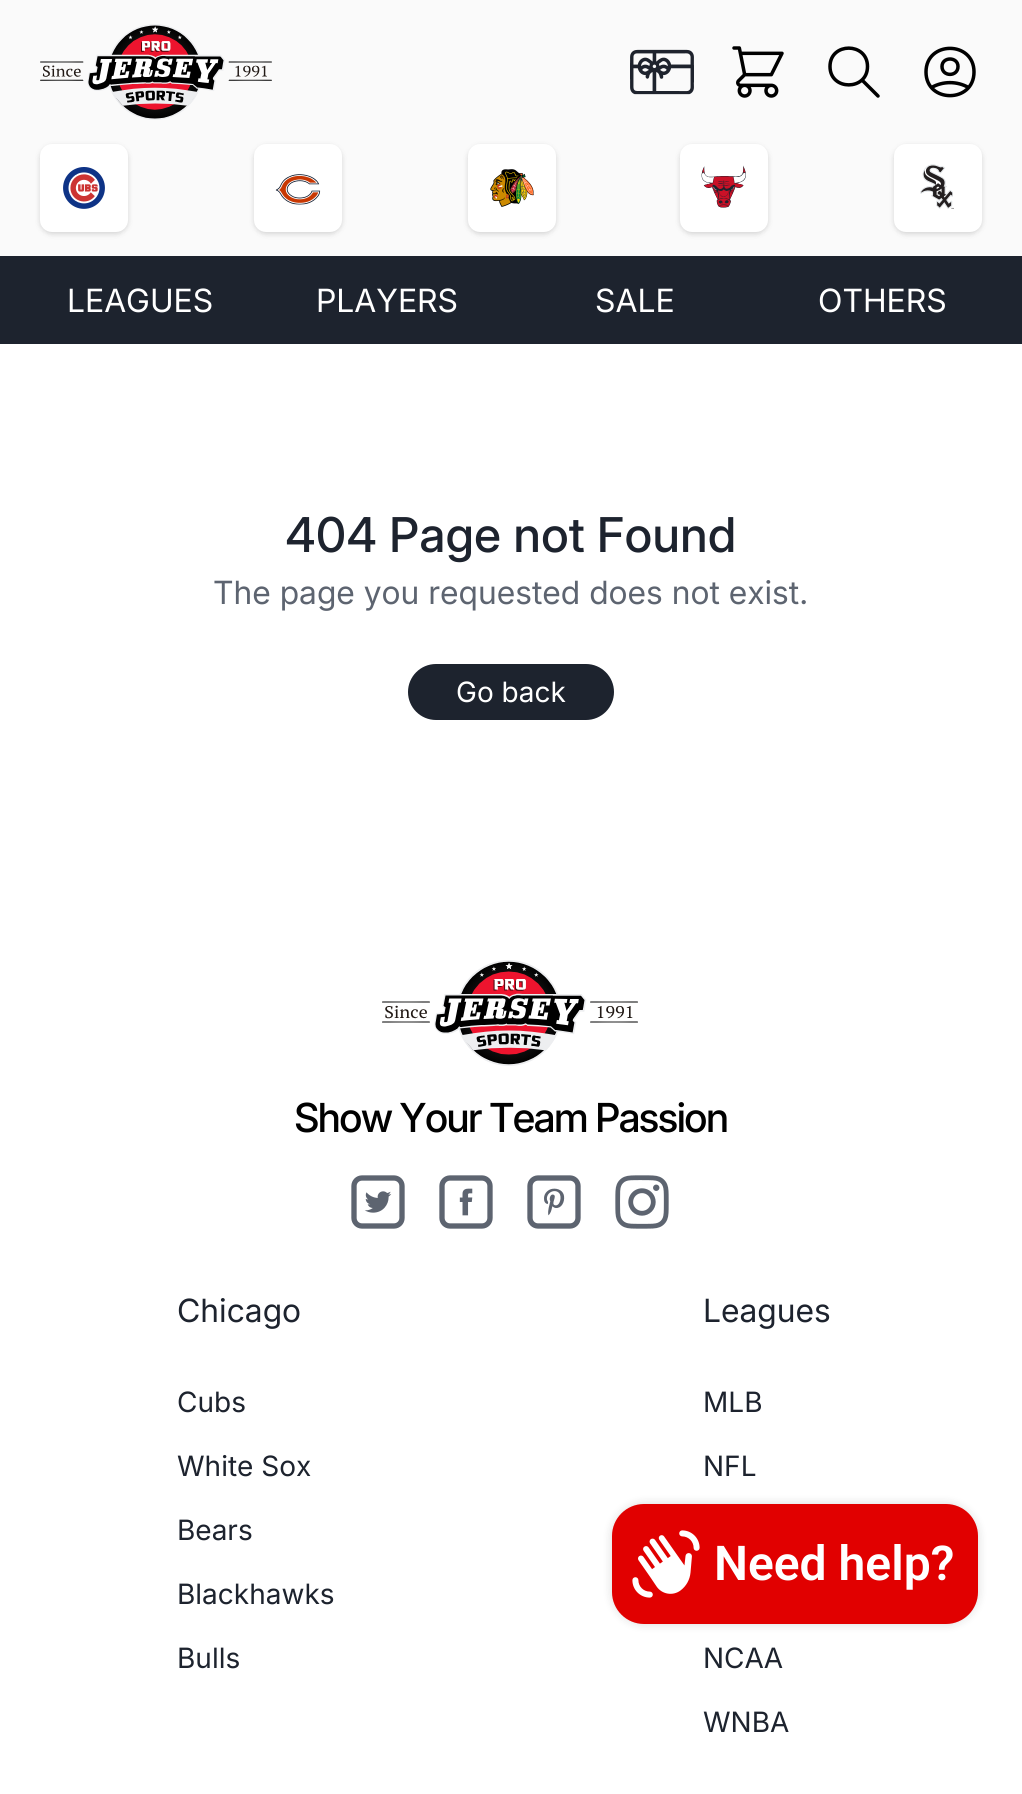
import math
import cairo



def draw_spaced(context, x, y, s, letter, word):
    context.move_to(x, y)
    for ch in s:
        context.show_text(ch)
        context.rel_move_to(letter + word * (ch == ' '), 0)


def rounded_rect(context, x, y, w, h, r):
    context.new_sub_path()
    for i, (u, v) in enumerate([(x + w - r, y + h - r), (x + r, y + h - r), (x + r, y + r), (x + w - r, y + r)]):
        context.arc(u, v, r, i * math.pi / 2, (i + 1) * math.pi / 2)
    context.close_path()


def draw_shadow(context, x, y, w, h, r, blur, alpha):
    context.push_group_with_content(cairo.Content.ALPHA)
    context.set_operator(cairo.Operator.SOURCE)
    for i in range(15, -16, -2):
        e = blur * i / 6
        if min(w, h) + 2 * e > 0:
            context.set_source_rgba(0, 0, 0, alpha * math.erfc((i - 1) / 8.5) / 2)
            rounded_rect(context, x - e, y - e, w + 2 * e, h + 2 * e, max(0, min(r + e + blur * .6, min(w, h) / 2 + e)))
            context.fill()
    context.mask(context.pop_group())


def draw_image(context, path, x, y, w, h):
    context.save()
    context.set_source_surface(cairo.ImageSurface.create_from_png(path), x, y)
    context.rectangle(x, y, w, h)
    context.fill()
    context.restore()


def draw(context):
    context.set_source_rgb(1, 1, 1)
    context.paint()
    context.set_source_rgb(250 / 255, 250 / 255, 250 / 255)
    context.rectangle(0, 0, 1022, 256)
    context.fill()
    draw_image(context, "images/1.png", 40, 24, 232, 96)
    draw_image(context, "images/2.png", 630, 49, 64, 46)
    draw_image(context, "images/3.png", 732, 46, 52, 52)
    context.new_path()
    context.move_to(878, 96)
    context.line_to(862, 80)
    context.move_to(867.5, 66.5)
    context.curve_to(867.5, 91, 830, 91, 830, 66.5)
    context.curve_to(830, 42, 867.5, 42, 867.5, 66.5)
    context.close_path()
    context.set_source_rgb(0, 0, 0)
    context.set_line_width(3.5)
    context.set_line_cap(cairo.LineCap.ROUND)
    context.set_line_join(cairo.LineJoin.ROUND)
    context.stroke()
    context.new_path()
    context.move_to(931.5, 87.5)
    context.curve_to(943, 81, 957, 81, 968.5, 87.5)
    context.move_to(958, 66.5)
    context.curve_to(958, 77, 942, 77, 942, 66.5)
    context.curve_to(942, 56.5, 958, 56.5, 958, 66.5)
    context.close_path()
    context.move_to(974, 72)
    context.curve_to(974, 103.5, 926, 103.5, 926, 72)
    context.curve_to(926, 40.5, 974, 40.5, 974, 72)
    context.close_path()
    context.stroke()
    context.set_source_rgb(0, 0, 0)
    draw_shadow(context, 40, 146, 88, 88, 12, 2, 0.06)
    draw_shadow(context, 40, 146, 88, 88, 12, 3, 0.1)
    context.set_source_rgb(1, 1, 1)
    rounded_rect(context, 40, 144, 88, 88, 12)
    context.fill()
    draw_image(context, "images/4.png", 63, 167, 42, 42)
    context.set_source_rgb(0, 0, 0)
    draw_shadow(context, 254, 146, 88, 88, 12, 2, 0.06)
    draw_shadow(context, 254, 146, 88, 88, 12, 3, 0.1)
    context.set_source_rgb(1, 1, 1)
    rounded_rect(context, 254, 144, 88, 88, 12)
    context.fill()
    draw_image(context, "images/5.png", 275, 174, 46, 31)
    context.set_source_rgb(0, 0, 0)
    draw_shadow(context, 468, 146, 88, 88, 12, 2, 0.06)
    draw_shadow(context, 468, 146, 88, 88, 12, 3, 0.1)
    context.set_source_rgb(1, 1, 1)
    rounded_rect(context, 468, 144, 88, 88, 12)
    context.fill()
    draw_image(context, "images/6.png", 490, 169, 44, 38)
    context.set_source_rgb(0, 0, 0)
    draw_shadow(context, 680, 146, 88, 88, 12, 2, 0.06)
    draw_shadow(context, 680, 146, 88, 88, 12, 3, 0.1)
    context.set_source_rgb(1, 1, 1)
    rounded_rect(context, 680, 144, 88, 88, 12)
    context.fill()
    draw_image(context, "images/7.png", 701, 165, 45, 43)
    context.set_source_rgb(0, 0, 0)
    draw_shadow(context, 894, 146, 88, 88, 12, 2, 0.06)
    draw_shadow(context, 894, 146, 88, 88, 12, 3, 0.1)
    context.set_source_rgb(1, 1, 1)
    rounded_rect(context, 894, 144, 88, 88, 12)
    context.fill()
    draw_image(context, "images/8.png", 920, 164, 34, 45)
    context.set_source_rgb(29 / 255, 35 / 255, 46 / 255)
    context.rectangle(0, 256, 1022, 88)
    context.fill()
    rounded_rect(context, 408, 664, 206, 56, 28)
    context.fill()
    draw_image(context, "images/9.png", 382, 960, 256, 106)
    draw_image(context, "images/10.png", 351, 1175, 54, 54)
    draw_image(context, "images/11.png", 439, 1175, 54, 54)
    draw_image(context, "images/12.png", 527, 1175, 54, 54)
    draw_image(context, "images/13.png", 615, 1175, 54, 54)
    context.set_source_rgb(0, 0, 0)
    draw_shadow(context, 612, 1504, 366, 120, 32, 5, 0.15)
    context.set_source_rgb(225 / 255, 0, 0)
    rounded_rect(context, 612, 1504, 366, 120, 32)
    context.fill()
    draw_image(context, "images/14.png", 632, 1530, 68, 68)
    context.select_font_face("Inter")
    context.set_font_size(32)
    context.set_source_rgb(1, 1, 1)
    context.move_to(67, 312)
    context.show_text("LEAGUES")
    context.move_to(316, 312)
    context.show_text("PLAYERS")
    context.move_to(595, 312)
    context.show_text("SALE")
    context.move_to(818, 312)
    context.show_text("OTHERS")
    context.select_font_face("Inter Medium")
    context.set_font_size(48)
    context.set_source_rgb(29 / 255, 35 / 255, 46 / 255)
    context.move_to(285, 552)
    context.show_text("404 Page not Found")
    context.select_font_face("Inter")
    context.set_font_size(32)
    context.set_source_rgb(93 / 255, 100 / 255, 112 / 255)
    context.move_to(213, 604)
    context.show_text("The page you requested does not exist.")
    context.select_font_face("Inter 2")
    context.set_font_size(28)
    context.set_source_rgb(1, 1, 1)
    context.move_to(456, 702)
    context.show_text("Go back")
    context.select_font_face("Inter 2 Medium")
    context.set_font_size(40)
    context.set_source_rgb(0, 0, 0)
    draw_spaced(context, 294, 1132, "Show Your Team Passion", -2, 0)
    context.select_font_face("Inter")
    context.set_font_size(32)
    context.set_source_rgb(29 / 255, 35 / 255, 46 / 255)
    context.move_to(177, 1322)
    context.show_text("Chicago")
    context.select_font_face("Inter 2")
    context.set_font_size(28)
    context.move_to(177, 1412)
    context.show_text("Cubs")
    context.move_to(177, 1476)
    context.show_text("White Sox")
    context.move_to(177, 1540)
    context.show_text("Bears")
    context.move_to(177, 1604)
    context.show_text("Blackhawks")
    context.move_to(177, 1668)
    context.show_text("Bulls")
    context.select_font_face("Inter")
    context.set_font_size(32)
    context.move_to(703, 1322)
    context.show_text("Leagues")
    context.select_font_face("Inter 2")
    context.set_font_size(28)
    context.move_to(703, 1412)
    context.show_text("MLB")
    context.move_to(703, 1476)
    context.show_text("NFL")
    context.move_to(703, 1668)
    context.show_text("NCAA")
    context.move_to(703, 1732)
    context.show_text("WNBA")
    context.select_font_face("Roboto SemiBold")
    context.set_font_size(48)
    context.set_source_rgb(1, 1, 1)
    context.move_to(714, 1580)
    context.show_text("Need help?")


surface = cairo.ImageSurface(cairo.Format.RGB24, 1022, 1794)
context = cairo.Context(surface)
options = cairo.FontOptions()
options.set_hint_metrics(cairo.HintMetrics.OFF)
options.set_hint_style(cairo.HintStyle.NONE)
context.set_font_options(options)
context.set_miter_limit(4)
draw(context)
surface.write_to_png("out.png")
